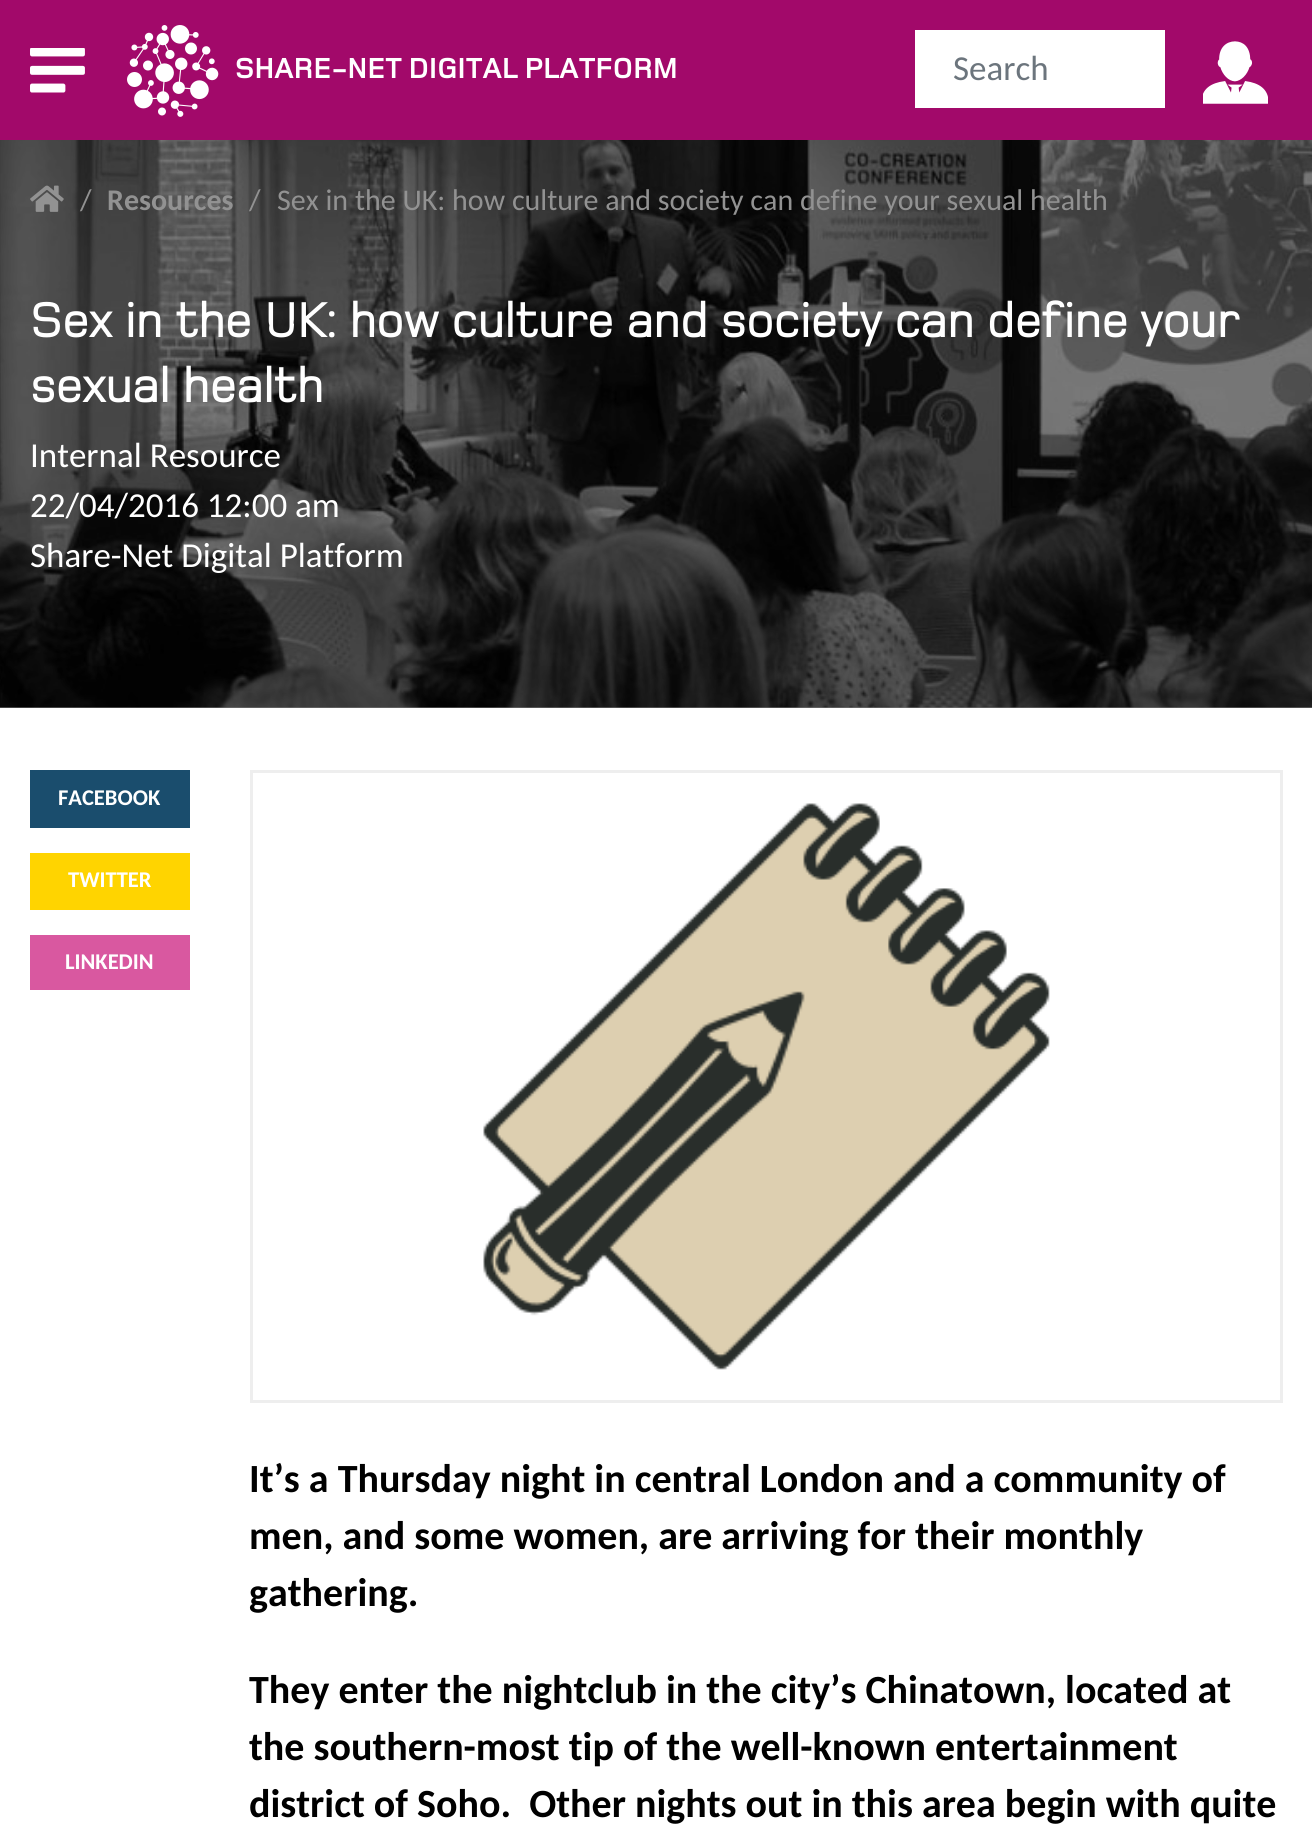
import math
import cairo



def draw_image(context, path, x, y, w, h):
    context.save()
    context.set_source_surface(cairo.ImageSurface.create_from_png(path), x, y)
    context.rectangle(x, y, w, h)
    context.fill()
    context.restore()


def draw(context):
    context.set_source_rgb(1, 1, 1)
    context.paint()
    context.set_source_rgb(128 / 255, 128 / 255, 128 / 255)
    context.rectangle(0, 707, 1312, 1)
    context.fill()
    context.set_source_rgb(162 / 255, 9 / 255, 106 / 255)
    context.rectangle(0, 0, 1312, 140)
    context.fill()
    draw_image(context, "images/1.png", 30, 48, 55, 45)
    draw_image(context, "images/2.png", 127, 25, 92, 92)
    context.set_source_rgb(1, 1, 1)
    context.rectangle(915, 30, 250, 78)
    context.fill()
    draw_image(context, "images/3.png", 1203, 41, 65, 63)
    draw_image(context, "images/4.png", 0, 140, 1312, 568)
    draw_image(context, "images/5.png", 30, 185, 34, 27)
    context.set_source_rgb(26 / 255, 77 / 255, 109 / 255)
    context.rectangle(30, 770, 160, 58)
    context.fill()
    context.set_source_rgb(1, 212 / 255, 0)
    context.rectangle(30, 853, 160, 57)
    context.fill()
    context.set_source_rgb(217 / 255, 88 / 255, 160 / 255)
    context.rectangle(30, 935, 160, 55)
    context.fill()
    context.rectangle(251.5, 771.5, 1030, 630)
    context.set_source_rgb(238 / 255, 238 / 255, 238 / 255)
    context.set_line_width(3)
    context.stroke()
    draw_image(context, "images/6.png", 483, 803, 567, 567)
    context.select_font_face("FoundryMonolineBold", cairo.FontSlant.NORMAL, cairo.FontWeight.BOLD)
    context.set_font_size(30)
    context.set_source_rgb(1, 1, 1)
    context.move_to(235, 78)
    context.show_text("SHARE-NET DIGITAL PLATFORM")
    context.select_font_face("Carlito")
    context.set_font_size(35)
    context.set_source_rgb(108 / 255, 117 / 255, 125 / 255)
    context.move_to(953, 80)
    context.show_text("Search")
    context.set_font_size(30)
    context.set_source_rgb(146 / 255, 146 / 255, 146 / 255)
    context.move_to(80, 210)
    context.show_text("/")
    context.select_font_face("Carlito", cairo.FontSlant.NORMAL, cairo.FontWeight.BOLD)
    context.move_to(107, 210)
    context.show_text("Resources")
    context.select_font_face("Carlito")
    context.move_to(249, 210)
    context.show_text("/")
    context.move_to(277, 210)
    context.show_text("Sex in the UK: how culture and society can define your sexual health")
    context.select_font_face("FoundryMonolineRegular", cairo.FontSlant.NORMAL, cairo.FontWeight.BOLD)
    context.set_font_size(50)
    context.set_source_rgb(1, 1, 1)
    context.move_to(30, 337)
    context.show_text("Sex in the UK: how culture and society can define your")
    context.move_to(30, 402)
    context.show_text("sexual health")
    context.select_font_face("Carlito")
    context.set_font_size(35)
    context.move_to(30, 467)
    context.show_text("Internal Resource")
    context.move_to(30, 517)
    context.show_text("22/04/2016 12:00 am")
    context.move_to(30, 567)
    context.show_text("Share-Net Digital Platform")
    context.select_font_face("Carlito", cairo.FontSlant.NORMAL, cairo.FontWeight.BOLD)
    context.set_font_size(22.5)
    context.move_to(58, 805)
    context.show_text("FACEBOOK")
    context.move_to(68, 887)
    context.show_text("TWITTER")
    context.move_to(65, 969)
    context.show_text("LINKEDIN")
    context.set_font_size(40)
    context.set_source_rgb(0, 0, 0)
    context.move_to(249, 1492)
    context.show_text("It’s a Thursday night in central London and a community of")
    context.move_to(249, 1549)
    context.show_text("men, and some women, are arriving for their monthly")
    context.move_to(249, 1606)
    context.show_text("gathering.")
    context.move_to(249, 1703)
    context.show_text("They enter the nightclub in the city’s Chinatown, located at")
    context.move_to(249, 1760)
    context.show_text("the southern-most tip of the well-known entertainment")
    context.move_to(249, 1817)
    context.show_text("district of Soho.  Other nights out in this area begin with quite")


surface = cairo.ImageSurface(cairo.Format.RGB24, 1312, 1846)
context = cairo.Context(surface)
options = cairo.FontOptions()
options.set_hint_metrics(cairo.HintMetrics.OFF)
options.set_hint_style(cairo.HintStyle.NONE)
context.set_font_options(options)
context.set_miter_limit(4)
draw(context)
surface.write_to_png("out.png")
